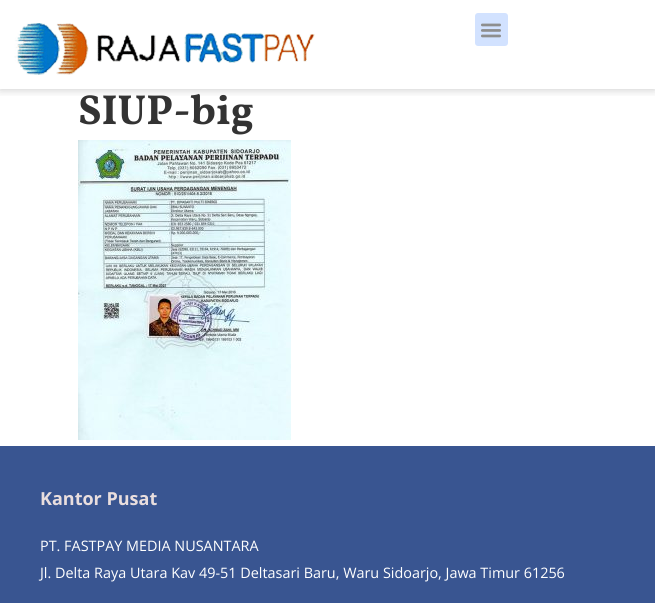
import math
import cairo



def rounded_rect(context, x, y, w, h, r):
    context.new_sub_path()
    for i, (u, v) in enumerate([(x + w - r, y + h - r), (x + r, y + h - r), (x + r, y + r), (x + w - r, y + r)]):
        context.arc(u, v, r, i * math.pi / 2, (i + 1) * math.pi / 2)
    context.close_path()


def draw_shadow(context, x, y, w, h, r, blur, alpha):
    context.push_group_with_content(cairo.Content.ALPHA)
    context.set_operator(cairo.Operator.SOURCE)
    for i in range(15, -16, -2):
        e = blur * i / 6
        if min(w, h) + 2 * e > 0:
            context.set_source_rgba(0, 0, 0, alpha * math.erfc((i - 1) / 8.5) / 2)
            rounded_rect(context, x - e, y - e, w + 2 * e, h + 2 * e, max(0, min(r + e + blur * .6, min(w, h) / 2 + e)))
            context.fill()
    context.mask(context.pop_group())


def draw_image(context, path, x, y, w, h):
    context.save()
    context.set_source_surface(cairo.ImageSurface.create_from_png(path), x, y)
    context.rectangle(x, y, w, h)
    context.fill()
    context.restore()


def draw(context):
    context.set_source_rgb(1, 1, 1)
    context.paint()
    context.save()
    context.rectangle(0, 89, 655, 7)
    context.clip()
    context.set_source_rgb(0, 0, 0)
    draw_shadow(context, 0, 0, 655, 89, 0, 5, 0.23)
    context.restore()
    draw_image(context, "images/1.png", 14, 23, 301, 52)
    context.set_source_rgb(210 / 255, 226 / 255, 1)
    rounded_rect(context, 475, 13, 33, 33, 3)
    context.fill()
    draw_image(context, "images/2.png", 481, 23, 20, 15)
    draw_image(context, "images/3.png", 78, 140, 213, 300)
    context.set_source_rgb(57 / 255, 85 / 255, 145 / 255)
    context.rectangle(0, 446, 655, 157)
    context.fill()
    context.select_font_face("Vollkorn", cairo.FontSlant.NORMAL, cairo.FontWeight.BOLD)
    context.set_font_size(42)
    context.set_source_rgb(51 / 255, 51 / 255, 51 / 255)
    context.move_to(78, 124)
    context.show_text("SIUP-big")
    context.select_font_face("Open Sans", cairo.FontSlant.NORMAL, cairo.FontWeight.BOLD)
    context.set_font_size(18)
    context.set_source_rgb(233 / 255, 222 / 255, 222 / 255)
    context.move_to(40, 505)
    context.show_text("Kantor Pusat")
    context.select_font_face("Open Sans")
    context.set_font_size(14.4)
    context.set_source_rgb(1, 1, 1)
    context.move_to(40, 551)
    context.show_text("PT. FASTPAY MEDIA NUSANTARA")
    context.move_to(40, 578)
    context.show_text("Jl. Delta Raya Utara Kav 49-51 Deltasari Baru, Waru Sidoarjo, Jawa Timur 61256")


surface = cairo.ImageSurface(cairo.Format.RGB24, 655, 603)
context = cairo.Context(surface)
options = cairo.FontOptions()
options.set_hint_metrics(cairo.HintMetrics.OFF)
options.set_hint_style(cairo.HintStyle.NONE)
context.set_font_options(options)
context.set_miter_limit(4)
draw(context)
surface.write_to_png("out.png")
